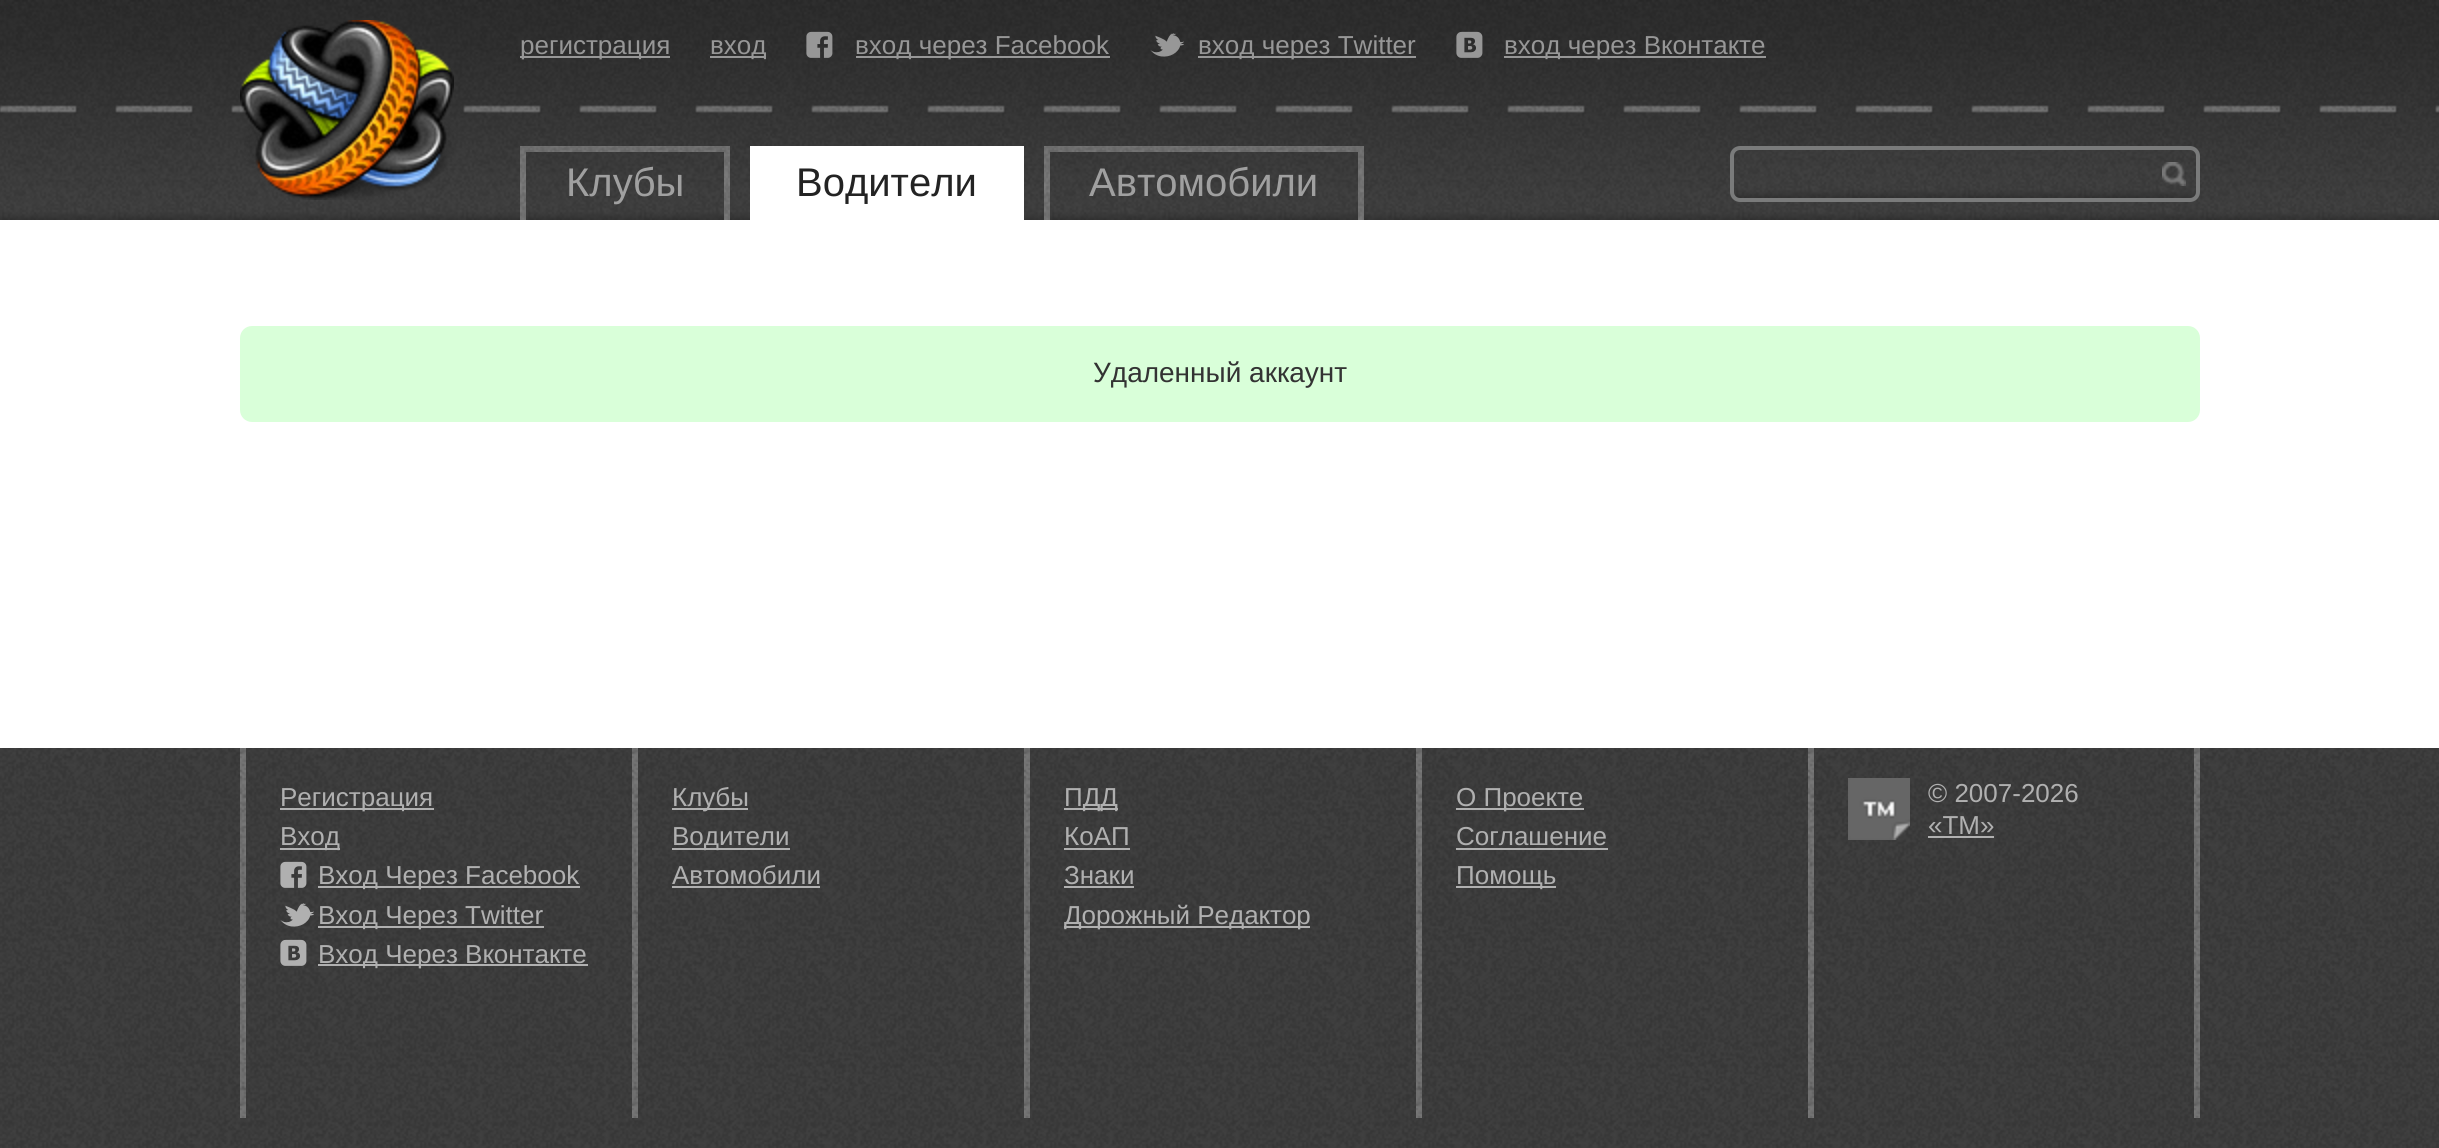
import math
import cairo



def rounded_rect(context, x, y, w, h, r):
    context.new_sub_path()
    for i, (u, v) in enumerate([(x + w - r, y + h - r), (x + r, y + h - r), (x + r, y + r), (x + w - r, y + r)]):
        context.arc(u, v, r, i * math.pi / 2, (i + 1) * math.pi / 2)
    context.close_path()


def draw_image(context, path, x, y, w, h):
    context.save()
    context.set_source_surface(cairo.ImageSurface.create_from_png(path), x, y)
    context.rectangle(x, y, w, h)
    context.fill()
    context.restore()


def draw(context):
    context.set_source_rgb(1, 1, 1)
    context.paint()
    draw_image(context, "images/1.png", 0, 0, 2439, 220)
    draw_image(context, "images/2.png", 240, 20, 214, 180)
    context.set_source_rgb(151 / 255, 151 / 255, 151 / 255)
    context.rectangle(520, 56, 150, 2)
    context.fill()
    context.rectangle(710, 56, 56, 2)
    context.fill()
    draw_image(context, "images/3.png", 806, 31, 27, 27)
    context.rectangle(856, 56, 254, 2)
    context.fill()
    draw_image(context, "images/4.png", 1150, 33, 34, 24)
    context.rectangle(1198, 56, 218, 2)
    context.fill()
    draw_image(context, "images/5.png", 1456, 31, 27, 27)
    context.rectangle(1504, 56, 262, 2)
    context.fill()
    draw_image(context, "images/6.png", 520, 146, 210, 74)
    draw_image(context, "images/7.png", 526, 152, 198, 68)
    context.set_source_rgb(1, 1, 1)
    context.rectangle(750, 146, 274, 74)
    context.fill()
    draw_image(context, "images/8.png", 1044, 146, 320, 74)
    draw_image(context, "images/9.png", 1050, 152, 308, 68)
    draw_image(context, "images/10.png", 1730, 146, 470, 52)
    rounded_rect(context, 1732, 148, 466, 52, 8)
    context.set_source_rgb(122 / 255, 123 / 255, 123 / 255)
    context.set_line_width(4)
    context.stroke()
    draw_image(context, "images/11.png", 2162, 162, 24, 24)
    context.set_source_rgb(217 / 255, 1, 217 / 255)
    rounded_rect(context, 240, 326, 1960, 96, 12)
    context.fill()
    draw_image(context, "images/12.png", 0, 748, 2439, 400)
    draw_image(context, "images/13.png", 2194, 748, 6, 370)
    draw_image(context, "images/13.png", 240, 748, 6, 370)
    context.set_source_rgb(176 / 255, 176 / 255, 176 / 255)
    context.rectangle(280, 808, 154, 2)
    context.fill()
    context.rectangle(280, 848, 60, 2)
    context.fill()
    draw_image(context, "images/14.png", 280, 861, 27, 27)
    context.rectangle(318, 886, 262, 2)
    context.fill()
    draw_image(context, "images/15.png", 280, 903, 34, 24)
    context.rectangle(318, 926, 226, 2)
    context.fill()
    draw_image(context, "images/16.png", 280, 939, 27, 27)
    context.rectangle(318, 964, 270, 2)
    context.fill()
    draw_image(context, "images/13.png", 632, 748, 6, 370)
    context.rectangle(672, 808, 76, 2)
    context.fill()
    context.rectangle(672, 848, 118, 2)
    context.fill()
    context.rectangle(672, 886, 148, 2)
    context.fill()
    draw_image(context, "images/13.png", 1024, 748, 6, 370)
    context.rectangle(1064, 808, 54, 2)
    context.fill()
    context.rectangle(1064, 848, 66, 2)
    context.fill()
    context.rectangle(1064, 886, 70, 2)
    context.fill()
    context.rectangle(1064, 926, 246, 2)
    context.fill()
    draw_image(context, "images/13.png", 1416, 748, 6, 370)
    context.rectangle(1456, 808, 128, 2)
    context.fill()
    context.rectangle(1456, 848, 152, 2)
    context.fill()
    context.rectangle(1456, 886, 100, 2)
    context.fill()
    draw_image(context, "images/13.png", 1808, 748, 6, 370)
    draw_image(context, "images/17.png", 1848, 778, 62, 62)
    context.rectangle(1928, 836, 66, 2)
    context.fill()
    context.select_font_face("Liberation Sans")
    context.set_font_size(26)
    context.set_source_rgb(151 / 255, 151 / 255, 151 / 255)
    context.move_to(520, 54)
    context.show_text("регистрация")
    context.move_to(710, 54)
    context.show_text("вход")
    context.move_to(855, 54)
    context.show_text("вход через Facebook")
    context.move_to(1198, 54)
    context.show_text("вход через Twitter")
    context.move_to(1504, 54)
    context.show_text("вход через Вконтакте")
    context.set_font_size(40)
    context.set_source_rgb(160 / 255, 160 / 255, 160 / 255)
    context.move_to(566, 196)
    context.show_text("Клубы")
    context.set_source_rgb(35 / 255, 35 / 255, 35 / 255)
    context.move_to(796, 196)
    context.show_text("Водители")
    context.set_source_rgb(160 / 255, 160 / 255, 160 / 255)
    context.move_to(1089, 196)
    context.show_text("Автомобили")
    context.set_font_size(28)
    context.set_source_rgb(51 / 255, 51 / 255, 51 / 255)
    context.move_to(1093, 382)
    context.show_text("Удаленный аккаунт")
    context.set_font_size(26)
    context.set_source_rgb(176 / 255, 176 / 255, 176 / 255)
    context.move_to(280, 806)
    context.show_text("Регистрация")
    context.move_to(280, 845)
    context.show_text("Вход")
    context.move_to(318, 884)
    context.show_text("Вход Через Facebook")
    context.move_to(318, 924)
    context.show_text("Вход Через Twitter")
    context.move_to(318, 963)
    context.show_text("Вход Через Вконтакте")
    context.move_to(672, 806)
    context.show_text("Клубы")
    context.move_to(672, 845)
    context.show_text("Водители")
    context.move_to(672, 884)
    context.show_text("Автомобили")
    context.move_to(1064, 806)
    context.show_text("ПДД")
    context.move_to(1064, 845)
    context.show_text("КоАП")
    context.move_to(1064, 884)
    context.show_text("Знаки")
    context.move_to(1064, 924)
    context.show_text("Дорожный Редактор")
    context.move_to(1456, 806)
    context.show_text("О Проекте")
    context.move_to(1456, 845)
    context.show_text("Соглашение")
    context.move_to(1456, 884)
    context.show_text("Помощь")
    context.move_to(1928, 802)
    context.show_text("© 2007-2026")
    context.move_to(1928, 834)
    context.show_text("«ТМ»")


surface = cairo.ImageSurface(cairo.Format.RGB24, 2439, 1148)
context = cairo.Context(surface)
options = cairo.FontOptions()
options.set_hint_metrics(cairo.HintMetrics.OFF)
options.set_hint_style(cairo.HintStyle.NONE)
context.set_font_options(options)
context.set_miter_limit(4)
draw(context)
surface.write_to_png("out.png")
